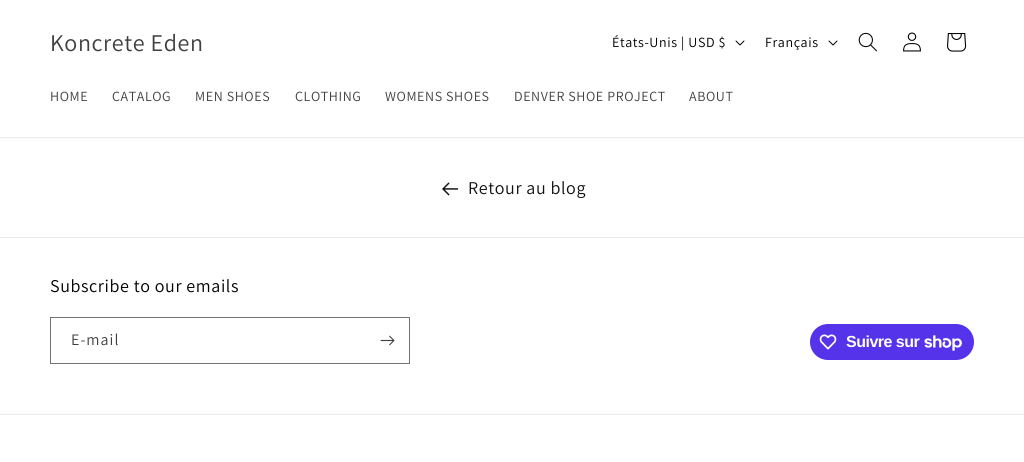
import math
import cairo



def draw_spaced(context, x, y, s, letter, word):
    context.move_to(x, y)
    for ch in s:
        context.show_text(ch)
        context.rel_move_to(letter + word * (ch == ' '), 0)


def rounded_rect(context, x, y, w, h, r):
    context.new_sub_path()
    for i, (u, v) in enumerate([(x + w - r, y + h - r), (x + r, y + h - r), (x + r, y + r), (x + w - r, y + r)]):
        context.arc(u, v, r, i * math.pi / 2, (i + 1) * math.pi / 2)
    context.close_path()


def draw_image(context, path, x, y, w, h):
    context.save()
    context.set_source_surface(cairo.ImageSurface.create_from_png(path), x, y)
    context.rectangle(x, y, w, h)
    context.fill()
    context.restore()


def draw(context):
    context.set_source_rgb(1, 1, 1)
    context.paint()
    context.set_source_rgb(235 / 255, 235 / 255, 235 / 255)
    context.rectangle(0, 137, 1024, 1)
    context.fill()
    draw_image(context, "images/1.png", 735, 40, 10, 6)
    draw_image(context, "images/1.png", 828, 40, 10, 6)
    draw_image(context, "images/2.png", 858, 32, 19, 20)
    draw_image(context, "images/3.png", 903, 32, 18, 20)
    draw_image(context, "images/4.png", 947, 33, 20, 19)
    draw_image(context, "images/5.png", 442, 182, 16, 14)
    context.rectangle(0, 237, 1024, 1)
    context.fill()
    context.rectangle(50.5, 317.5, 359, 46)
    context.set_source_rgb(115 / 255, 115 / 255, 115 / 255)
    context.set_line_width(1)
    context.stroke()
    draw_image(context, "images/6.png", 380, 335, 15, 11)
    context.set_source_rgb(84 / 255, 51 / 255, 235 / 255)
    rounded_rect(context, 810, 324, 164, 36, 18)
    context.fill()
    draw_image(context, "images/7.png", 819, 334, 18, 16)
    draw_image(context, "images/8.png", 924, 335, 38, 16)
    context.set_source_rgb(235 / 255, 235 / 255, 235 / 255)
    context.rectangle(0, 414, 1024, 1)
    context.fill()
    context.select_font_face("Assistant")
    context.set_font_size(24)
    context.set_source_rgb(64 / 255, 64 / 255, 64 / 255)
    draw_spaced(context, 50, 51, "Koncrete Eden", 0.6, 0)
    context.set_font_size(14)
    context.set_source_rgb(0, 0, 0)
    draw_spaced(context, 612, 47, "États-Unis | USD $", 0.6, 0)
    draw_spaced(context, 765, 47, "Français", 0.6, 0)
    context.set_source_rgb(64 / 255, 64 / 255, 64 / 255)
    draw_spaced(context, 50, 101, "HOME", 0.6, 0)
    draw_spaced(context, 112, 101, "CATALOG", 0.6, 0)
    draw_spaced(context, 195, 101, "MEN SHOES", 0.6, 0)
    draw_spaced(context, 295, 101, "CLOTHING", 0.6, 0)
    draw_spaced(context, 385, 101, "WOMENS SHOES", 0.6, 0)
    draw_spaced(context, 514, 101, "DENVER SHOE PROJECT", 0.6, 0)
    draw_spaced(context, 689, 101, "ABOUT", 0.6, 0)
    context.set_font_size(18)
    context.set_source_rgb(18 / 255, 18 / 255, 18 / 255)
    draw_spaced(context, 468, 194, "Retour au blog", 0.6, 0)
    context.set_source_rgb(0, 0, 0)
    draw_spaced(context, 50, 292, "Subscribe to our emails", 0.6, 0)
    context.set_font_size(16)
    context.set_source_rgb(64 / 255, 64 / 255, 64 / 255)
    draw_spaced(context, 71, 345, "E-mail", 1, 0)
    context.select_font_face("Liberation Sans", cairo.FontSlant.NORMAL, cairo.FontWeight.BOLD)
    context.set_source_rgb(1, 1, 1)
    draw_spaced(context, 846, 347, "Suivre sur", -0.5, 0)


surface = cairo.ImageSurface(cairo.Format.RGB24, 1024, 462)
context = cairo.Context(surface)
options = cairo.FontOptions()
options.set_hint_metrics(cairo.HintMetrics.OFF)
options.set_hint_style(cairo.HintStyle.NONE)
context.set_font_options(options)
context.set_miter_limit(4)
draw(context)
surface.write_to_png("out.png")
